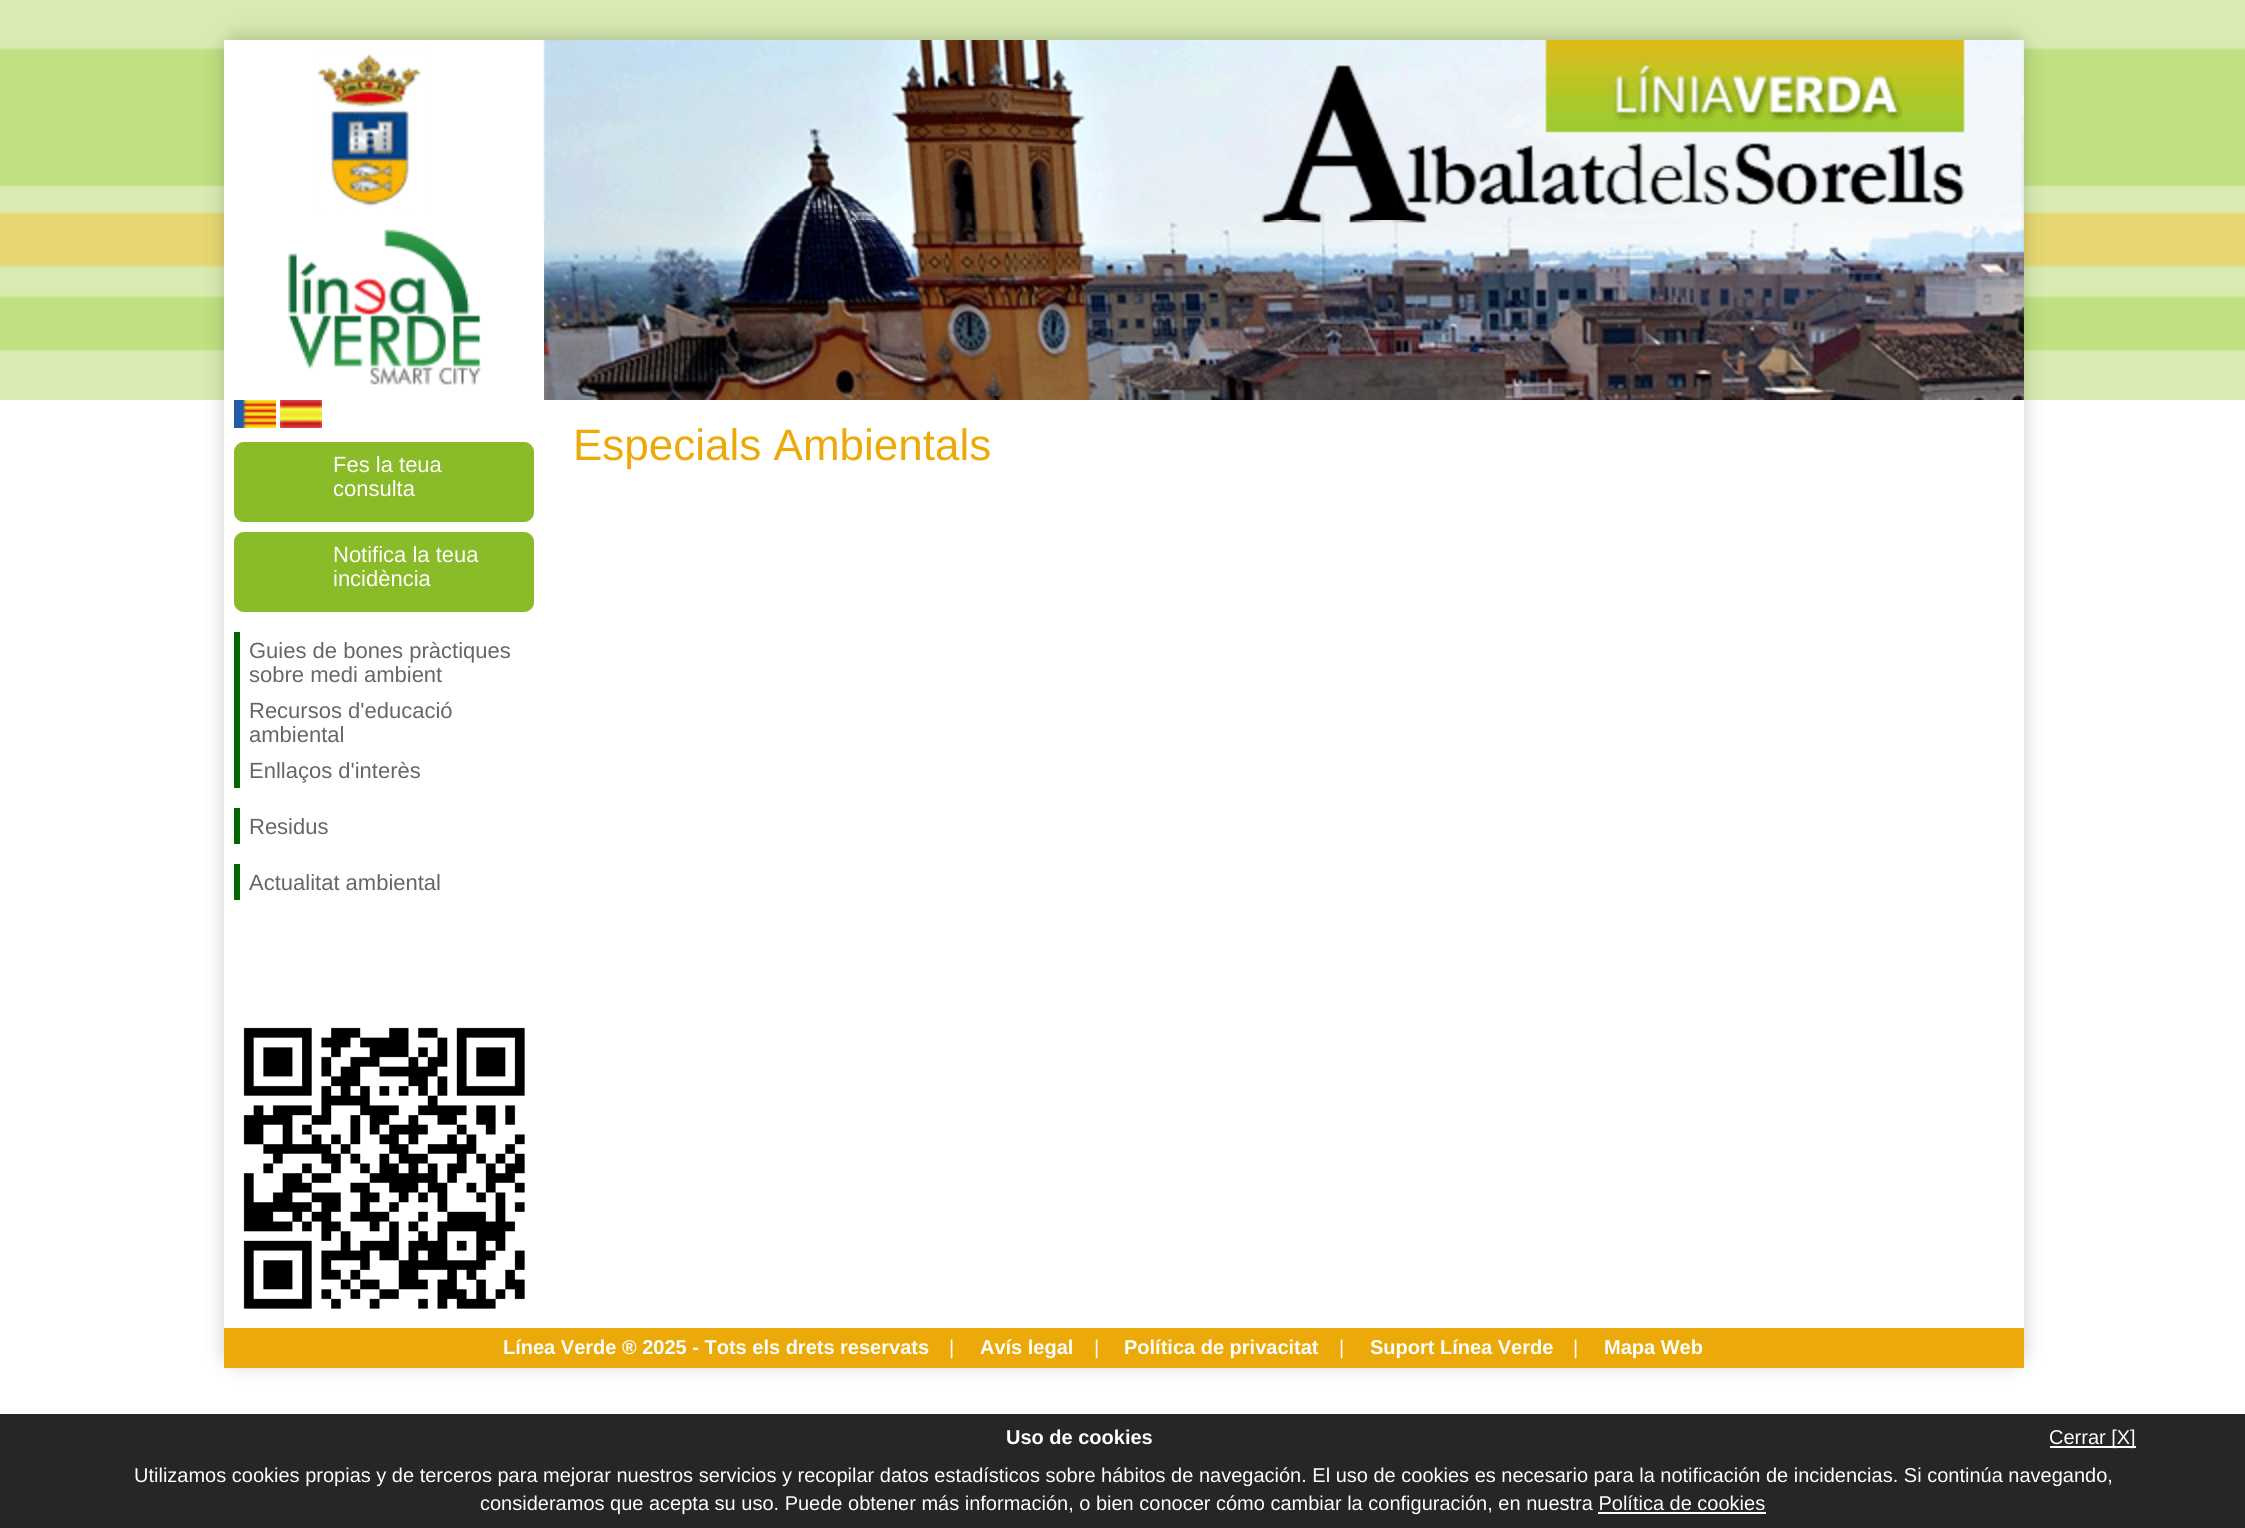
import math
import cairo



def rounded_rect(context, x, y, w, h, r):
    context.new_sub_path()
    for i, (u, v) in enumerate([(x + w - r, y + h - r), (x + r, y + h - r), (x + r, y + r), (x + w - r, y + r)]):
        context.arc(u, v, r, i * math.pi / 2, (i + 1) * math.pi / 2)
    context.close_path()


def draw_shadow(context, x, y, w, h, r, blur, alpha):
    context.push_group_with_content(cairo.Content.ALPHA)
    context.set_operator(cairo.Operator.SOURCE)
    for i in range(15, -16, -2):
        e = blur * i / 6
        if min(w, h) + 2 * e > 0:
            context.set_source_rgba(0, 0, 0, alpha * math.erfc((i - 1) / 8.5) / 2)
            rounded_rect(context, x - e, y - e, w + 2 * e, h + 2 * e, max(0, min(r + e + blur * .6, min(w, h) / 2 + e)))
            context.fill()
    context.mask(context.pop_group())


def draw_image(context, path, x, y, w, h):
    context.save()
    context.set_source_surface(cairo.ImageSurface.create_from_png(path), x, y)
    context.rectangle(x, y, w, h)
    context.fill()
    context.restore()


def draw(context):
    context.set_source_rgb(1, 1, 1)
    context.paint()
    draw_image(context, "images/1.png", 0, 0, 2245, 400)
    context.set_source_rgb(0, 0, 0)
    draw_shadow(context, 224, 36, 1800, 1328, 14, 10, 0.2)
    context.set_source_rgb(1, 1, 1)
    context.rectangle(224, 220, 1800, 1108)
    context.fill()
    draw_image(context, "images/2.png", 224, 40, 1800, 180)
    draw_image(context, "images/3.png", 288, 229, 194, 156)
    draw_image(context, "images/4.png", 544, 220, 1480, 180)
    draw_image(context, "images/5.png", 234, 400, 42, 28)
    draw_image(context, "images/6.png", 280, 400, 42, 28)
    context.set_source_rgb(138 / 255, 187 / 255, 41 / 255)
    rounded_rect(context, 234, 442, 300, 80, 10)
    context.fill()
    rounded_rect(context, 234, 532, 300, 80, 10)
    context.fill()
    context.set_source_rgb(0, 102 / 255, 0)
    context.rectangle(234, 632, 6, 156)
    context.fill()
    context.rectangle(234, 808, 6, 36)
    context.fill()
    context.rectangle(234, 864, 6, 36)
    context.fill()
    draw_image(context, "images/7.png", 243, 1027, 282, 282)
    context.set_source_rgb(236 / 255, 169 / 255, 10 / 255)
    context.rectangle(224, 1328, 1800, 40)
    context.fill()
    context.set_source_rgb(38 / 255, 38 / 255, 38 / 255)
    context.rectangle(0, 1414, 2245, 114)
    context.fill()
    context.set_source_rgb(1, 1, 1)
    context.rectangle(2050, 1446, 86, 2)
    context.fill()
    context.rectangle(1598, 1512, 168, 2)
    context.fill()
    context.select_font_face("Liberation Sans")
    context.set_font_size(44)
    context.set_source_rgb(236 / 255, 169 / 255, 10 / 255)
    context.move_to(573, 460)
    context.show_text("Especials Ambientals")
    context.set_font_size(22)
    context.set_source_rgb(1, 1, 1)
    context.move_to(333, 472)
    context.show_text("Fes la teua")
    context.move_to(333, 496)
    context.show_text("consulta")
    context.move_to(333, 562)
    context.show_text("Notifica la teua")
    context.move_to(333, 586)
    context.show_text("incidència")
    context.set_source_rgb(102 / 255, 102 / 255, 102 / 255)
    context.move_to(249, 658)
    context.show_text("Guies de bones pràctiques")
    context.move_to(249, 682)
    context.show_text("sobre medi ambient")
    context.move_to(249, 718)
    context.show_text("Recursos d'educació")
    context.move_to(249, 742)
    context.show_text("ambiental")
    context.move_to(249, 778)
    context.show_text("Enllaços d'interès")
    context.move_to(249, 834)
    context.show_text("Residus")
    context.move_to(249, 890)
    context.show_text("Actualitat ambiental")
    context.select_font_face("Liberation Sans", cairo.FontSlant.NORMAL, cairo.FontWeight.BOLD)
    context.set_font_size(20)
    context.set_source_rgb(1, 1, 1)
    context.move_to(503, 1354)
    context.show_text("Línea Verde ® 2025 - Tots els drets reservats")
    context.select_font_face("Liberation Sans")
    context.move_to(949, 1354)
    context.show_text("|")
    context.select_font_face("Liberation Sans", cairo.FontSlant.NORMAL, cairo.FontWeight.BOLD)
    context.move_to(980, 1354)
    context.show_text("Avís legal")
    context.select_font_face("Liberation Sans")
    context.move_to(1094, 1354)
    context.show_text("|")
    context.select_font_face("Liberation Sans", cairo.FontSlant.NORMAL, cairo.FontWeight.BOLD)
    context.move_to(1124, 1354)
    context.show_text("Política de privacitat")
    context.select_font_face("Liberation Sans")
    context.move_to(1339, 1354)
    context.show_text("|")
    context.select_font_face("Liberation Sans", cairo.FontSlant.NORMAL, cairo.FontWeight.BOLD)
    context.move_to(1370, 1354)
    context.show_text("Suport Línea Verde")
    context.select_font_face("Liberation Sans")
    context.move_to(1573, 1354)
    context.show_text("|")
    context.select_font_face("Liberation Sans", cairo.FontSlant.NORMAL, cairo.FontWeight.BOLD)
    context.move_to(1604, 1354)
    context.show_text("Mapa Web")
    context.move_to(1006, 1444)
    context.show_text("Uso de cookies")
    context.select_font_face("Liberation Sans")
    context.move_to(2049, 1444)
    context.show_text("Cerrar [X]")
    context.move_to(134, 1482)
    context.show_text("Utilizamos cookies propias y de terceros para mejorar nuestros servicios y recopilar datos estadísticos sobre hábitos de navegación. El uso de cookies es necesario para la notificación de incidencias. Si continúa navegando,")
    context.move_to(480, 1510)
    context.show_text("consideramos que acepta su uso. Puede obtener más información, o bien conocer cómo cambiar la configuración, en nuestra Política de cookies")


surface = cairo.ImageSurface(cairo.Format.RGB24, 2245, 1528)
context = cairo.Context(surface)
options = cairo.FontOptions()
options.set_hint_metrics(cairo.HintMetrics.OFF)
options.set_hint_style(cairo.HintStyle.NONE)
context.set_font_options(options)
context.set_miter_limit(4)
draw(context)
surface.write_to_png("out.png")
